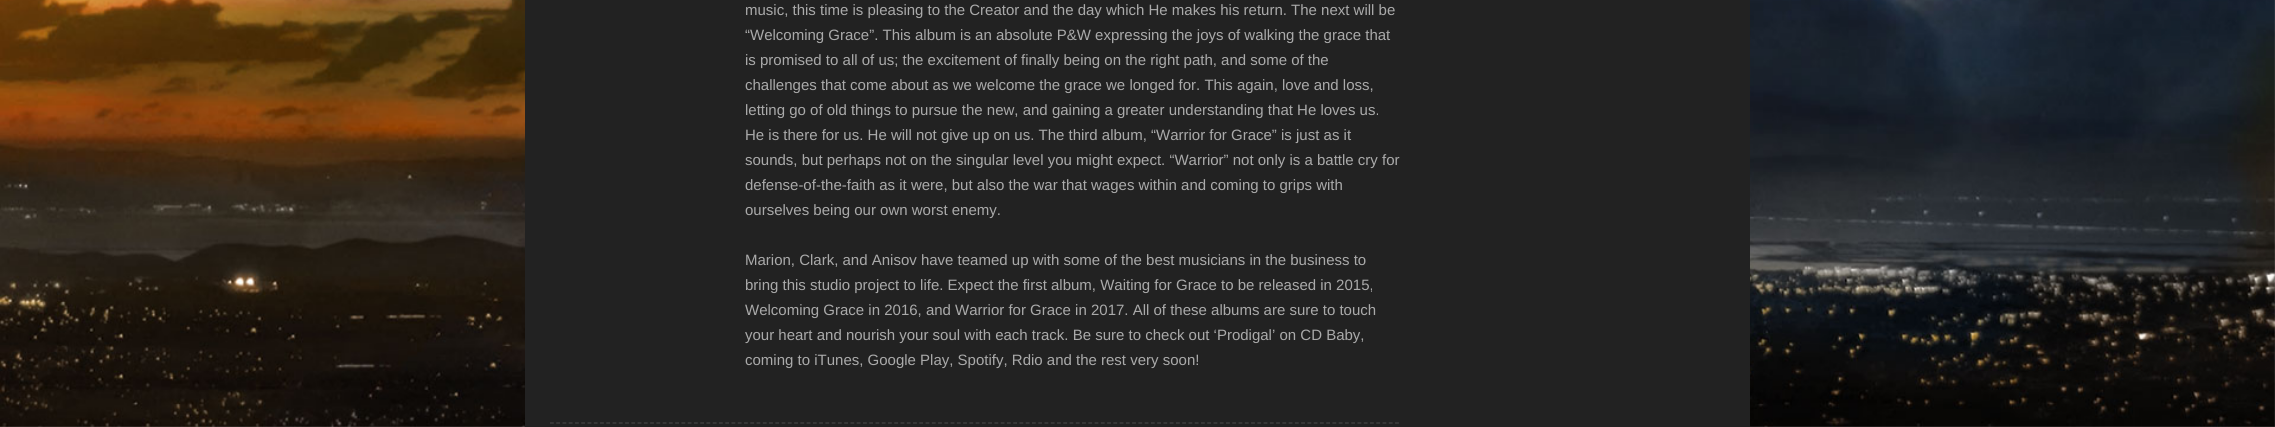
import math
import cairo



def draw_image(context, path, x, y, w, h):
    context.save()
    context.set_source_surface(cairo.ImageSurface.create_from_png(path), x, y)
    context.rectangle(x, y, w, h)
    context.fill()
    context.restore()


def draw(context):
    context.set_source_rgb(1, 1, 1)
    context.paint()
    draw_image(context, "images/1.png", 0, 0, 2275, 427)
    context.set_source_rgb(34 / 255, 34 / 255, 34 / 255)
    context.rectangle(525, 0, 1225, 427)
    context.fill()
    context.new_path()
    context.move_to(550, 423)
    context.line_to(1400, 423)
    context.set_source_rgb(68 / 255, 68 / 255, 68 / 255)
    context.set_line_width(1.2)
    context.set_dash([3.75, 2.51])
    context.stroke()
    context.select_font_face("Liberation Sans")
    context.set_font_size(15)
    context.set_source_rgb(170 / 255, 170 / 255, 170 / 255)
    context.move_to(745, 15)
    context.show_text("music, this time is pleasing to the Creator and the day which He makes his return. The next will be")
    context.move_to(745, 40)
    context.show_text("“Welcoming Grace”. This album is an absolute P&W expressing the joys of walking the grace that")
    context.move_to(745, 65)
    context.show_text("is promised to all of us; the excitement of finally being on the right path, and some of the")
    context.move_to(745, 90)
    context.show_text("challenges that come about as we welcome the grace we longed for. This again, love and loss,")
    context.move_to(745, 115)
    context.show_text("letting go of old things to pursue the new, and gaining a greater understanding that He loves us.")
    context.move_to(745, 140)
    context.show_text("He is there for us. He will not give up on us. The third album, “Warrior for Grace” is just as it")
    context.move_to(745, 165)
    context.show_text("sounds, but perhaps not on the singular level you might expect. “Warrior” not only is a battle cry for")
    context.move_to(745, 190)
    context.show_text("defense-of-the-faith as it were, but also the war that wages within and coming to grips with")
    context.move_to(745, 215)
    context.show_text("ourselves being our own worst enemy.")
    context.move_to(745, 265)
    context.show_text("Marion, Clark, and Anisov have teamed up with some of the best musicians in the business to")
    context.move_to(745, 290)
    context.show_text("bring this studio project to life. Expect the first album, Waiting for Grace to be released in 2015,")
    context.move_to(745, 315)
    context.show_text("Welcoming Grace in 2016, and Warrior for Grace in 2017. All of these albums are sure to touch")
    context.move_to(745, 340)
    context.show_text("your heart and nourish your soul with each track. Be sure to check out ‘Prodigal’ on CD Baby,")
    context.move_to(745, 365)
    context.show_text("coming to iTunes, Google Play, Spotify, Rdio and the rest very soon!")


surface = cairo.ImageSurface(cairo.Format.RGB24, 2275, 427)
context = cairo.Context(surface)
options = cairo.FontOptions()
options.set_hint_metrics(cairo.HintMetrics.OFF)
options.set_hint_style(cairo.HintStyle.NONE)
context.set_font_options(options)
context.set_miter_limit(4)
draw(context)
surface.write_to_png("out.png")
